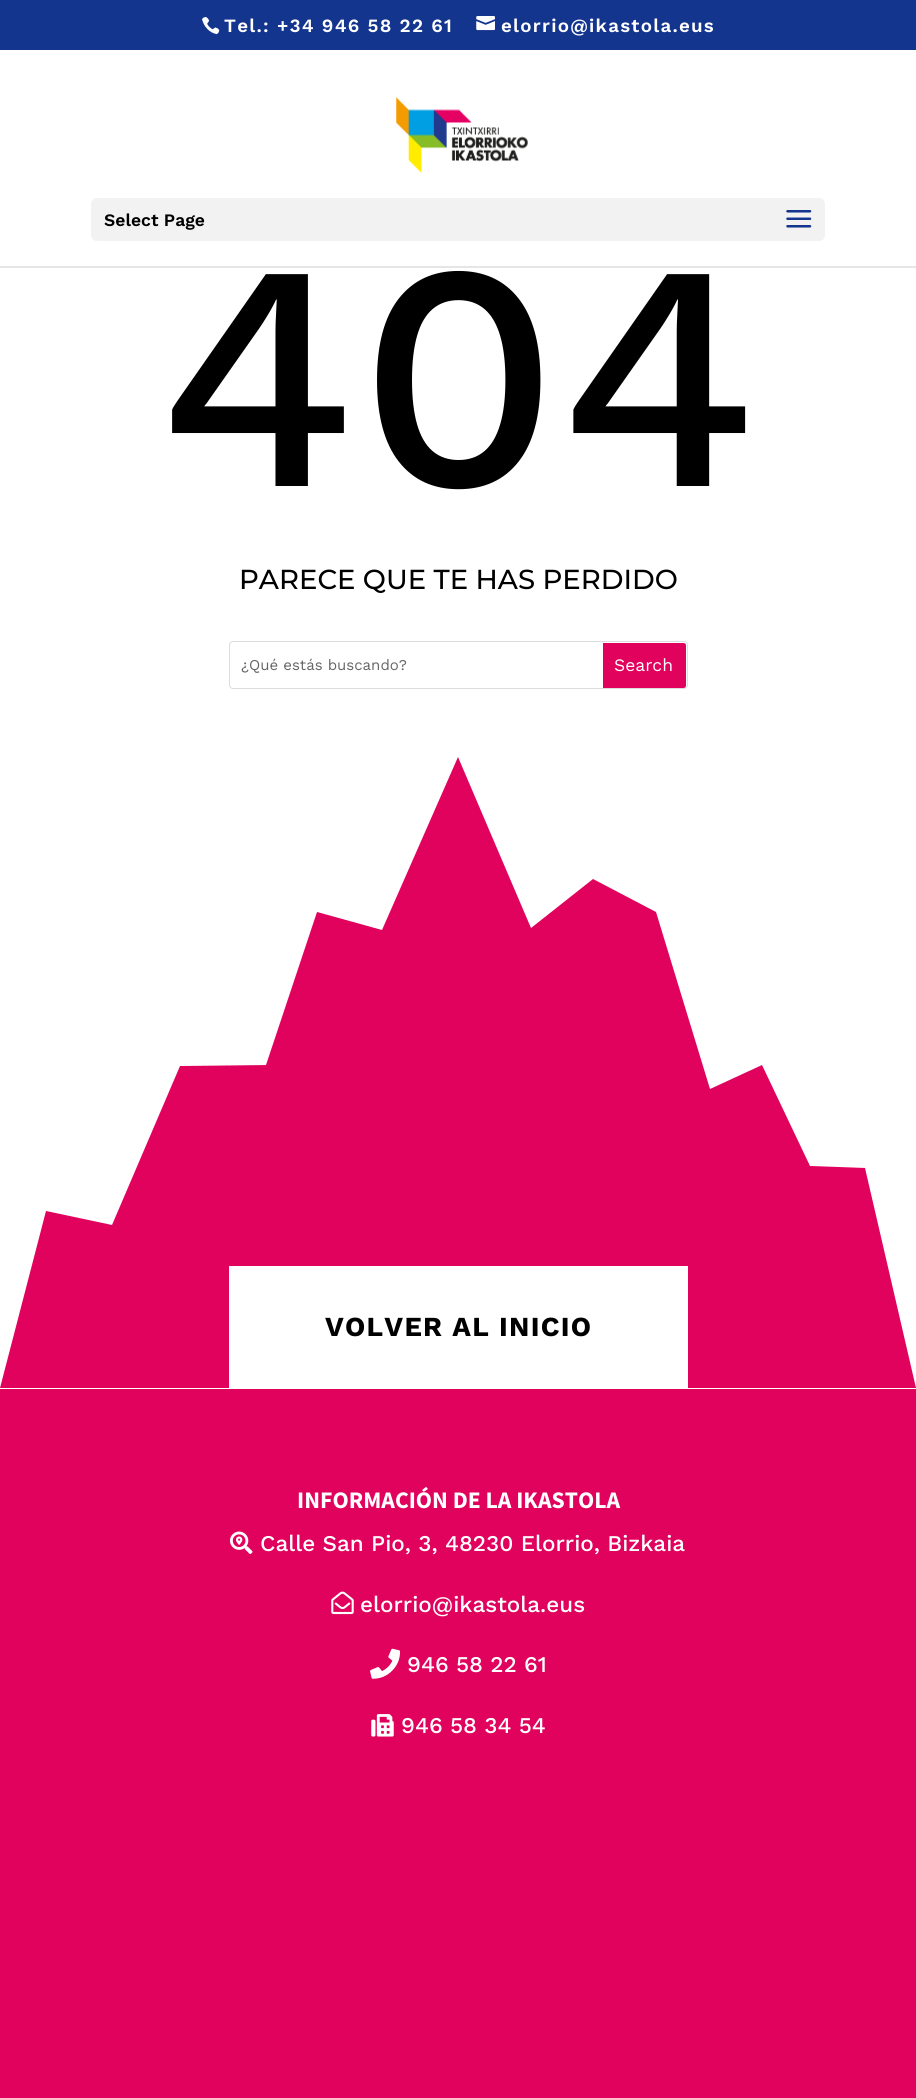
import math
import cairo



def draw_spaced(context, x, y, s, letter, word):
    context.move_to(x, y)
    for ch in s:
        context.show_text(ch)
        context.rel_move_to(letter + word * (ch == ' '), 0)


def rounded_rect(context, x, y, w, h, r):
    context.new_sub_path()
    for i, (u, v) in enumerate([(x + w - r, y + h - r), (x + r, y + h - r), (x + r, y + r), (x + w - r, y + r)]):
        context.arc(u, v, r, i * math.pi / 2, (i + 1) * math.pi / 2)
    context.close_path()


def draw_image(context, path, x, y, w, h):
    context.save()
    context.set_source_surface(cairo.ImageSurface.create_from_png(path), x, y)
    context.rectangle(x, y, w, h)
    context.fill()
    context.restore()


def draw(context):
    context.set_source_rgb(1, 1, 1)
    context.paint()
    context.set_source_rgb(19 / 255, 53 / 255, 142 / 255)
    context.rectangle(0, 0, 916, 50)
    context.fill()
    draw_image(context, "images/1.png", 202, 17, 18, 18)
    draw_image(context, "images/2.png", 476, 16, 19, 15)
    context.set_source_rgb(230 / 255, 230 / 255, 230 / 255)
    context.rectangle(0, 266, 916, 2)
    context.fill()
    draw_image(context, "images/3.png", 396, 97, 132, 76)
    context.set_source_rgb(242 / 255, 242 / 255, 242 / 255)
    rounded_rect(context, 91, 198, 734, 43, 6)
    context.fill()
    draw_image(context, "images/4.png", 786, 210, 26, 18)
    rounded_rect(context, 229.5, 641.5, 458, 47, 3.5)
    context.set_source_rgb(221 / 255, 221 / 255, 221 / 255)
    context.set_line_width(1)
    context.stroke()
    context.set_source_rgb(224 / 255, 2 / 255, 92 / 255)
    context.new_path()
    context.move_to(603, 643)
    context.line_to(683.5, 643)
    context.curve_to(685, 643, 686, 644, 686, 645.5)
    context.line_to(686, 685.5)
    context.curve_to(686, 687, 685, 688, 683.5, 688)
    context.line_to(603, 688)
    context.close_path()
    context.fill()
    context.new_path()
    context.move_to(112, 1225)
    context.line_to(180, 1066)
    context.line_to(266, 1065)
    context.line_to(317, 912)
    context.line_to(382, 930)
    context.line_to(458, 757)
    context.line_to(531, 928)
    context.line_to(593, 879)
    context.line_to(656, 912)
    context.line_to(710, 1089)
    context.line_to(762, 1065)
    context.line_to(810, 1166)
    context.line_to(865, 1168)
    context.line_to(916, 1388)
    context.line_to(0, 1388)
    context.line_to(46, 1211)
    context.close_path()
    context.fill()
    context.set_source_rgb(1, 1, 1)
    context.rectangle(229, 1266, 459, 122)
    context.fill()
    context.set_source_rgb(224 / 255, 2 / 255, 92 / 255)
    context.rectangle(0, 1389, 916, 709)
    context.fill()
    draw_image(context, "images/5.png", 230, 1531, 23, 23)
    draw_image(context, "images/6.png", 331, 1591, 23, 24)
    draw_image(context, "images/7.png", 370, 1648, 31, 31)
    draw_image(context, "images/8.png", 371, 1714, 23, 23)
    context.select_font_face("Work Sans SemiBold")
    context.set_font_size(18.75)
    context.set_source_rgb(1, 1, 1)
    draw_spaced(context, 224, 32, "Tel.: +34 946 58 22 61", 1.25, 0)
    draw_spaced(context, 501, 32, "elorrio@ikastola.eus", 1.25, 0)
    context.set_font_size(17.5)
    context.set_source_rgb(0, 0, 0)
    context.move_to(104, 226)
    context.show_text("Select Page")
    context.select_font_face("Work Sans Medium")
    context.set_font_size(321)
    context.move_to(158, 486)
    context.show_text("404")
    context.select_font_face("Montserrat Thin")
    context.set_font_size(27.5)
    context.move_to(239, 589)
    context.show_text("PARECE QUE TE HAS PERDIDO")
    context.select_font_face("Work Sans")
    context.set_font_size(15)
    context.set_source_rgb(102 / 255, 102 / 255, 102 / 255)
    context.move_to(241, 670)
    context.show_text("¿Qué estás buscando?")
    context.set_font_size(17.5)
    context.set_source_rgb(1, 1, 1)
    context.move_to(614, 671)
    context.show_text("Search")
    context.select_font_face("Work Sans", cairo.FontSlant.NORMAL, cairo.FontWeight.BOLD)
    context.set_font_size(27.5)
    context.set_source_rgb(0, 0, 0)
    draw_spaced(context, 325, 1336, "VOLVER AL INICIO", 1.25, 0)
    context.select_font_face("Source Sans Pro", cairo.FontSlant.NORMAL, cairo.FontWeight.BOLD)
    context.set_font_size(23.75)
    context.set_source_rgb(1, 1, 1)
    context.move_to(297, 1508)
    context.show_text("INFORMACIÓN DE LA IKASTOLA")
    context.select_font_face("Work Sans Medium")
    context.set_font_size(22.5)
    context.move_to(260, 1551)
    context.show_text("Calle San Pio, 3, 48230 Elorrio, Bizkaia")
    context.move_to(360, 1612)
    context.show_text("elorrio@ikastola.eus")
    context.move_to(407, 1672)
    context.show_text("946 58 22 61")
    context.move_to(401, 1733)
    context.show_text("946 58 34 54")


surface = cairo.ImageSurface(cairo.Format.RGB24, 916, 2098)
context = cairo.Context(surface)
options = cairo.FontOptions()
options.set_hint_metrics(cairo.HintMetrics.OFF)
options.set_hint_style(cairo.HintStyle.NONE)
context.set_font_options(options)
context.set_miter_limit(4)
draw(context)
surface.write_to_png("out.png")
